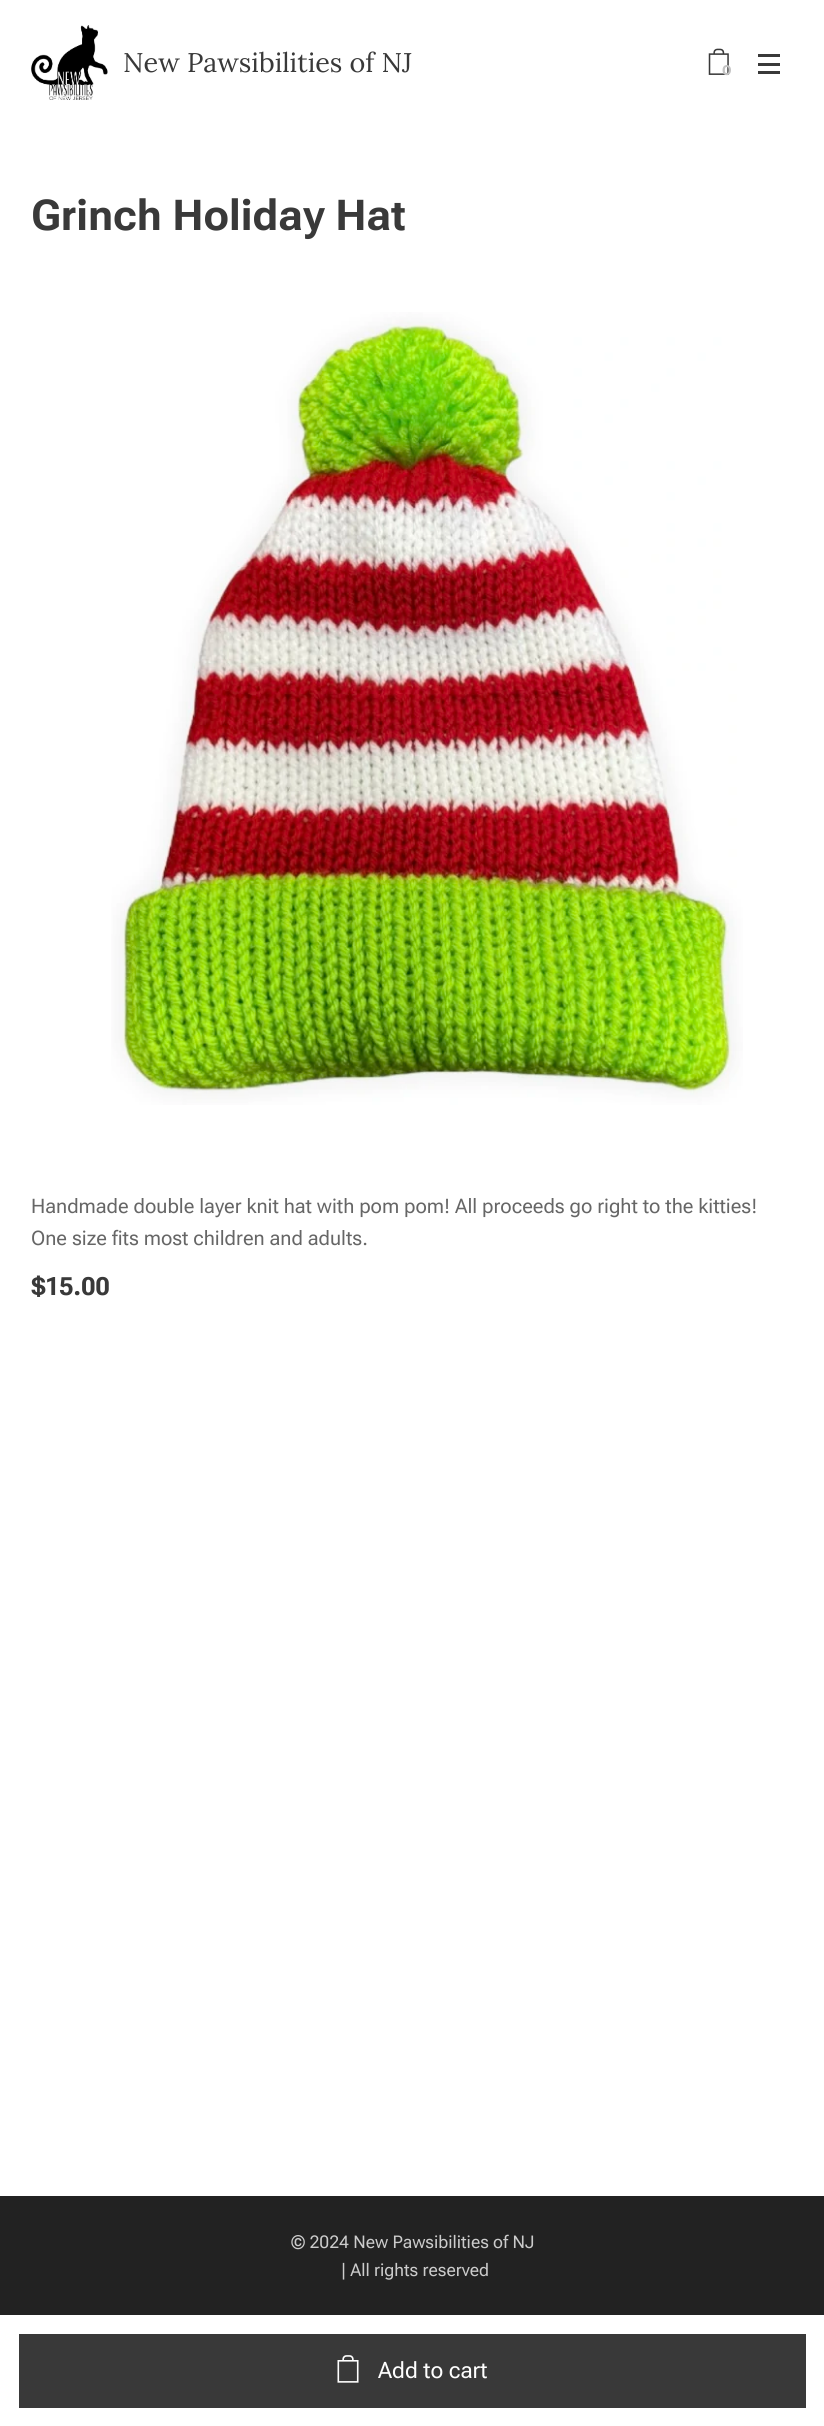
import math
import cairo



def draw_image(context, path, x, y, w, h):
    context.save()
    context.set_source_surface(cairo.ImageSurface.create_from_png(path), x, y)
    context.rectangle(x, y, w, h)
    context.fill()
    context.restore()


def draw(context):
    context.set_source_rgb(1, 1, 1)
    context.paint()
    draw_image(context, "images/1.png", 31, 25, 77, 75)
    draw_image(context, "images/2.png", 708, 48, 21, 27)
    context.set_source_rgb(57 / 255, 57 / 255, 57 / 255)
    context.rectangle(758, 63, 22, 3)
    context.fill()
    context.rectangle(758, 54, 22, 3)
    context.fill()
    context.rectangle(758, 71, 22, 3)
    context.fill()
    draw_image(context, "images/3.png", 111, 312, 632, 793)
    context.rectangle(19, 2334, 787, 74)
    context.fill()
    draw_image(context, "images/4.png", 337, 2355, 22, 28)
    context.set_source_rgb(34 / 255, 34 / 255, 34 / 255)
    context.rectangle(0, 2196, 824, 119)
    context.fill()
    context.select_font_face("Lora")
    context.set_font_size(27)
    context.set_source_rgb(57 / 255, 57 / 255, 57 / 255)
    context.move_to(123, 72)
    context.show_text("New Pawsibilities of NJ")
    context.select_font_face("Montserrat", cairo.FontSlant.NORMAL, cairo.FontWeight.BOLD)
    context.set_font_size(14)
    context.set_source_rgb(195 / 255, 195 / 255, 195 / 255)
    context.move_to(722, 75)
    context.show_text("0")
    context.select_font_face("Roboto Flex", cairo.FontSlant.NORMAL, cairo.FontWeight.BOLD)
    context.set_font_size(42.5)
    context.set_source_rgb(57 / 255, 57 / 255, 57 / 255)
    context.move_to(31, 230)
    context.show_text("Grinch Holiday Hat")
    context.select_font_face("Roboto Flex")
    context.set_font_size(20)
    context.set_source_rgb(102 / 255, 102 / 255, 102 / 255)
    context.move_to(31, 1213)
    context.show_text("Handmade double layer knit hat with pom pom! All proceeds go right to the kitties!")
    context.move_to(31, 1245)
    context.show_text("One size fits most children and adults.")
    context.select_font_face("Roboto Flex", cairo.FontSlant.NORMAL, cairo.FontWeight.BOLD)
    context.set_font_size(25)
    context.set_source_rgb(57 / 255, 57 / 255, 57 / 255)
    context.move_to(31, 1295)
    context.show_text("$15.00")
    context.select_font_face("Roboto Flex")
    context.set_font_size(22.5)
    context.set_source_rgb(1, 1, 1)
    context.move_to(378, 2378)
    context.show_text("Add to cart")
    context.set_font_size(17.5)
    context.set_source_rgb(204 / 255, 204 / 255, 204 / 255)
    context.move_to(291, 2248)
    context.show_text("© 2024 New Pawsibilities of NJ")
    context.move_to(341, 2276)
    context.show_text("| All rights reserved")


surface = cairo.ImageSurface(cairo.Format.RGB24, 824, 2426)
context = cairo.Context(surface)
options = cairo.FontOptions()
options.set_hint_metrics(cairo.HintMetrics.OFF)
options.set_hint_style(cairo.HintStyle.NONE)
context.set_font_options(options)
context.set_miter_limit(4)
draw(context)
surface.write_to_png("out.png")
